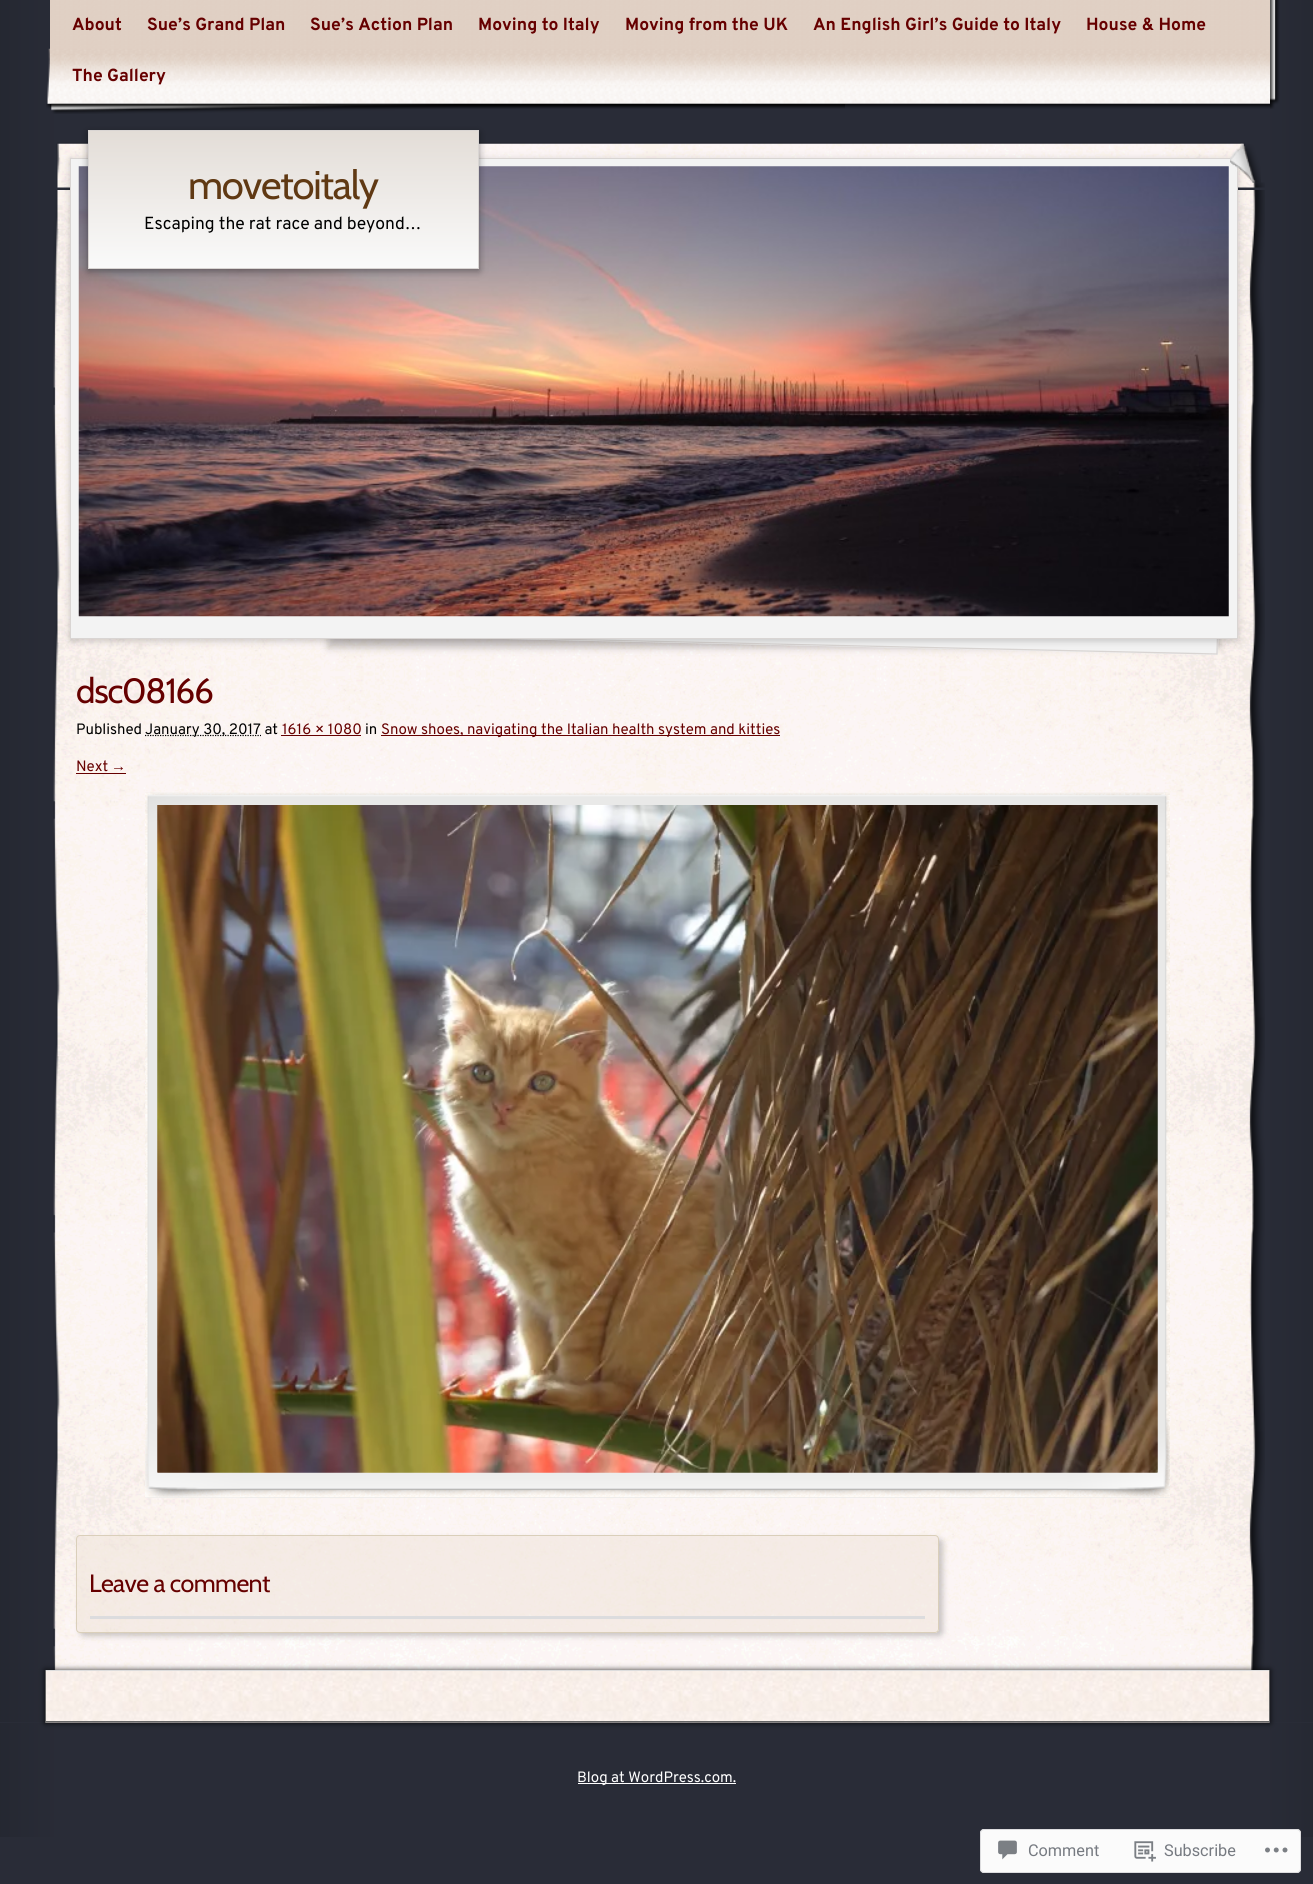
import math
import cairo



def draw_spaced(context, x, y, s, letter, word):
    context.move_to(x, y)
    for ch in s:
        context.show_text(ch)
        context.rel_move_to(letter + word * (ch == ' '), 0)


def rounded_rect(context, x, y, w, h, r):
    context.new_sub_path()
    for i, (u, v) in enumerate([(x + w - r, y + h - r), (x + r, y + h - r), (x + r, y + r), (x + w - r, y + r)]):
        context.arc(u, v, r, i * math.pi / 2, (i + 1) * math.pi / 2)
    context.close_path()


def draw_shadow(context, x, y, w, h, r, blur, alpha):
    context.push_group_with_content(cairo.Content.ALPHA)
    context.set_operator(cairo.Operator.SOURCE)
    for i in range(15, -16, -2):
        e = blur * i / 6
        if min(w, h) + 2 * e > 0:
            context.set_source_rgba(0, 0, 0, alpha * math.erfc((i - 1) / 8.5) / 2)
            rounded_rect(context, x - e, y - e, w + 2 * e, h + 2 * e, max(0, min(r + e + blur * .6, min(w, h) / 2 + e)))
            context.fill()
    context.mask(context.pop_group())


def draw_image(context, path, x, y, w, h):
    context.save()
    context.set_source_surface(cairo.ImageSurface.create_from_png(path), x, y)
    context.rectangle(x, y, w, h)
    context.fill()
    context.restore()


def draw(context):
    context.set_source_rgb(41 / 255, 44 / 255, 55 / 255)
    context.paint()
    draw_image(context, "images/1.png", 0, 0, 1313, 1722)
    draw_image(context, "images/2.png", 46, 48, 799, 66)
    draw_image(context, "images/3.png", 50, 0, 1220, 109)
    draw_image(context, "images/4.png", 1270, 0, 10, 109)
    draw_image(context, "images/5.png", 56, 142, 1209, 46)
    draw_image(context, "images/8.png", 53, 190, 1212, 1480)
    context.set_source_rgb(0, 0, 0)
    draw_shadow(context, 328, 503, 892, 145, 0, 4, 0.2)
    context.set_source_rgb(243 / 255, 243 / 255, 243 / 255)
    context.new_path()
    context.move_to(329, 490)
    context.line_to(1221, 510)
    context.line_to(1218, 655)
    context.line_to(325, 635)
    context.close_path()
    context.fill()
    context.new_path()
    context.move_to(329, 490)
    context.line_to(1220.5, 510.5)
    context.line_to(1217, 654)
    context.line_to(326, 634)
    context.close_path()
    context.set_source_rgb(217 / 255, 213 / 255, 211 / 255)
    context.set_line_width(1.3)
    context.stroke()
    context.set_source_rgb(0, 0, 0)
    draw_shadow(context, 70, 160, 1168, 481, 0, 4, 0.2)
    context.set_source_rgb(243 / 255, 243 / 255, 243 / 255)
    context.rectangle(70.5, 158.5, 1167, 480)
    context.fill_preserve()
    context.set_source_rgb(217 / 255, 213 / 255, 211 / 255)
    context.set_line_width(1)
    context.stroke()
    draw_image(context, "images/6.png", 1230, 143, 31, 41)
    draw_image(context, "images/7.png", 78, 166, 1151, 451)
    context.set_source_rgb(0, 0, 0)
    draw_shadow(context, 88, 133, 391, 138, 0, 4, 0.4)
    gradient = cairo.LinearGradient(283, 131, 283, 268)
    gradient.add_color_stop_rgba(0, 227 / 255, 221 / 255, 215 / 255, 1)
    gradient.add_color_stop_rgba(1, 250 / 255, 250 / 255, 250 / 255, 1)
    context.set_source(gradient)
    context.rectangle(89, 131, 389, 137)
    context.fill()
    context.rectangle(88.5, 130.5, 390, 138)
    context.set_source_rgb(217 / 255, 213 / 255, 211 / 255)
    context.stroke()
    context.new_path()
    context.move_to(145, 735.5)
    context.line_to(261, 735.5)
    context.set_source_rgb(0, 0, 0)
    context.set_line_width(1.2)
    context.set_dash([1.25, 1.25])
    context.stroke()
    context.set_source_rgb(102 / 255, 0, 0)
    context.rectangle(281, 735, 80, 1)
    context.fill()
    context.rectangle(381, 735, 399, 1)
    context.fill()
    context.rectangle(76, 773, 50, 1)
    context.fill()
    context.set_source_rgb(233 / 255, 233 / 255, 232 / 255)
    context.rectangle(145, 1497, 1025, 1)
    context.fill()
    draw_image(context, "images/9.png", 145, 792, 1025, 706)
    draw_image(context, "images/10.png", 157, 805, 1001, 668)
    context.save()
    context.set_fill_rule(cairo.FillRule.EVEN_ODD)
    context.new_path()
    context.move_to(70, 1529)
    context.line_to(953, 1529)
    context.line_to(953, 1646)
    context.line_to(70, 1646)
    context.close_path()
    context.move_to(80, 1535)
    context.line_to(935, 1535)
    context.curve_to(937, 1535, 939, 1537, 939, 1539)
    context.line_to(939, 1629)
    context.curve_to(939, 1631, 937, 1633, 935, 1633)
    context.line_to(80, 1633)
    context.curve_to(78, 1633, 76, 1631, 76, 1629)
    context.line_to(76, 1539)
    context.curve_to(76, 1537, 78, 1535, 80, 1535)
    context.close_path()
    context.clip()
    context.set_source_rgb(0, 0, 0)
    draw_shadow(context, 80, 1539, 863, 97, 4, 3, 0.2)
    context.restore()
    context.set_source_rgba(239 / 255, 227 / 255, 216 / 255, 0.5)
    rounded_rect(context, 76.5, 1535.5, 862, 97, 3.5)
    context.fill_preserve()
    context.set_source_rgb(218 / 255, 207 / 255, 186 / 255)
    context.set_line_width(1)
    context.set_dash([])
    context.stroke()
    context.set_source_rgb(220 / 255, 220 / 255, 222 / 255)
    context.rectangle(90, 1616, 835, 3)
    context.fill()
    context.set_source_rgb(0, 0, 0)
    draw_shadow(context, 45, 1670, 1225, 53, 0, 3, 0.8)
    draw_image(context, "images/11.png", 46, 1671, 1223, 52)
    context.set_source_rgb(221 / 255, 221 / 255, 221 / 255)
    context.rectangle(45, 1670, 1225, 1)
    context.fill()
    context.set_source_rgb(102 / 255, 102 / 255, 102 / 255)
    context.rectangle(1269, 1670, 1, 53)
    context.fill()
    context.rectangle(45, 1721, 1225, 1)
    context.fill()
    context.rectangle(45, 1670, 1, 53)
    context.fill()
    draw_image(context, "images/12.png", 0, 1723, 1313, 114)
    context.set_source_rgb(1, 1, 1)
    context.rectangle(578, 1783, 158, 1)
    context.fill()
    context.set_source_rgba(1, 1, 1, 0.98)
    rounded_rect(context, 980, 1829, 321, 44, 4)
    context.fill()
    rounded_rect(context, 980.5, 1829.5, 320, 43, 3.5)
    context.set_source_rgba(220 / 255, 220 / 255, 222 / 255, 0.98)
    context.stroke()
    draw_image(context, "images/13.png", 998, 1840, 19, 20)
    draw_image(context, "images/14.png", 1134, 1841, 22, 21)
    draw_image(context, "images/15.png", 1265, 1847, 23, 6)
    context.select_font_face("Overpass", cairo.FontSlant.NORMAL, cairo.FontWeight.BOLD)
    context.set_font_size(17.5)
    context.set_source_rgb(102 / 255, 0, 0)
    context.move_to(72, 30)
    context.show_text("About")
    context.move_to(147, 30)
    context.show_text("Sue’s Grand Plan")
    context.move_to(310, 30)
    context.show_text("Sue’s Action Plan")
    context.move_to(478, 30)
    context.show_text("Moving to Italy")
    context.move_to(625, 30)
    context.show_text("Moving from the UK")
    context.move_to(813, 30)
    context.show_text("An English Girl’s Guide to Italy")
    context.move_to(1086, 30)
    context.show_text("House & Home")
    context.move_to(72, 81)
    context.show_text("The Gallery")
    context.select_font_face("Cabin")
    context.set_font_size(40)
    context.set_source_rgb(96 / 255, 57 / 255, 19 / 255)
    draw_spaced(context, 188, 199, "movetoitaly", -1.25, 0)
    context.select_font_face("Overpass")
    context.set_font_size(17.5)
    context.set_source_rgb(0, 0, 0)
    context.move_to(144, 229)
    context.show_text("Escaping the rat race and beyond…")
    context.select_font_face("Cabin")
    context.set_font_size(35)
    context.set_source_rgb(102 / 255, 0, 0)
    draw_spaced(context, 76, 703, "dsc08166", -1.25, 0)
    context.select_font_face("Overpass")
    context.set_font_size(15)
    context.set_source_rgb(0, 0, 0)
    context.move_to(76, 734)
    context.show_text("Published")
    context.move_to(145, 734)
    context.show_text("January 30, 2017 at")
    context.set_source_rgb(102 / 255, 0, 0)
    context.move_to(282, 734)
    context.show_text("1616 × 1080")
    context.set_source_rgb(0, 0, 0)
    context.move_to(365, 734)
    context.show_text("in")
    context.set_source_rgb(102 / 255, 0, 0)
    context.move_to(381, 734)
    context.show_text("Snow shoes, navigating the Italian health system and kitties")
    context.move_to(76, 771)
    context.show_text("Next")
    context.select_font_face("Liberation Sans")
    context.move_to(111, 771)
    context.show_text("→")
    context.select_font_face("Cabin")
    context.set_font_size(25)
    draw_spaced(context, 89, 1592, "Leave a comment", -0.6, 0)
    context.select_font_face("Overpass")
    context.set_font_size(15)
    context.set_source_rgb(1, 1, 1)
    context.move_to(577, 1782)
    context.show_text("Blog at WordPress.com.")
    context.select_font_face("Roboto")
    context.set_font_size(16.25)
    context.set_source_rgb(118 / 255, 122 / 255, 129 / 255)
    context.move_to(1028, 1856)
    context.show_text("Comment")
    context.move_to(1164, 1856)
    context.show_text("Subscribe")


surface = cairo.ImageSurface(cairo.Format.RGB24, 1313, 1884)
context = cairo.Context(surface)
options = cairo.FontOptions()
options.set_hint_metrics(cairo.HintMetrics.OFF)
options.set_hint_style(cairo.HintStyle.NONE)
context.set_font_options(options)
context.set_miter_limit(4)
draw(context)
surface.write_to_png("out.png")
